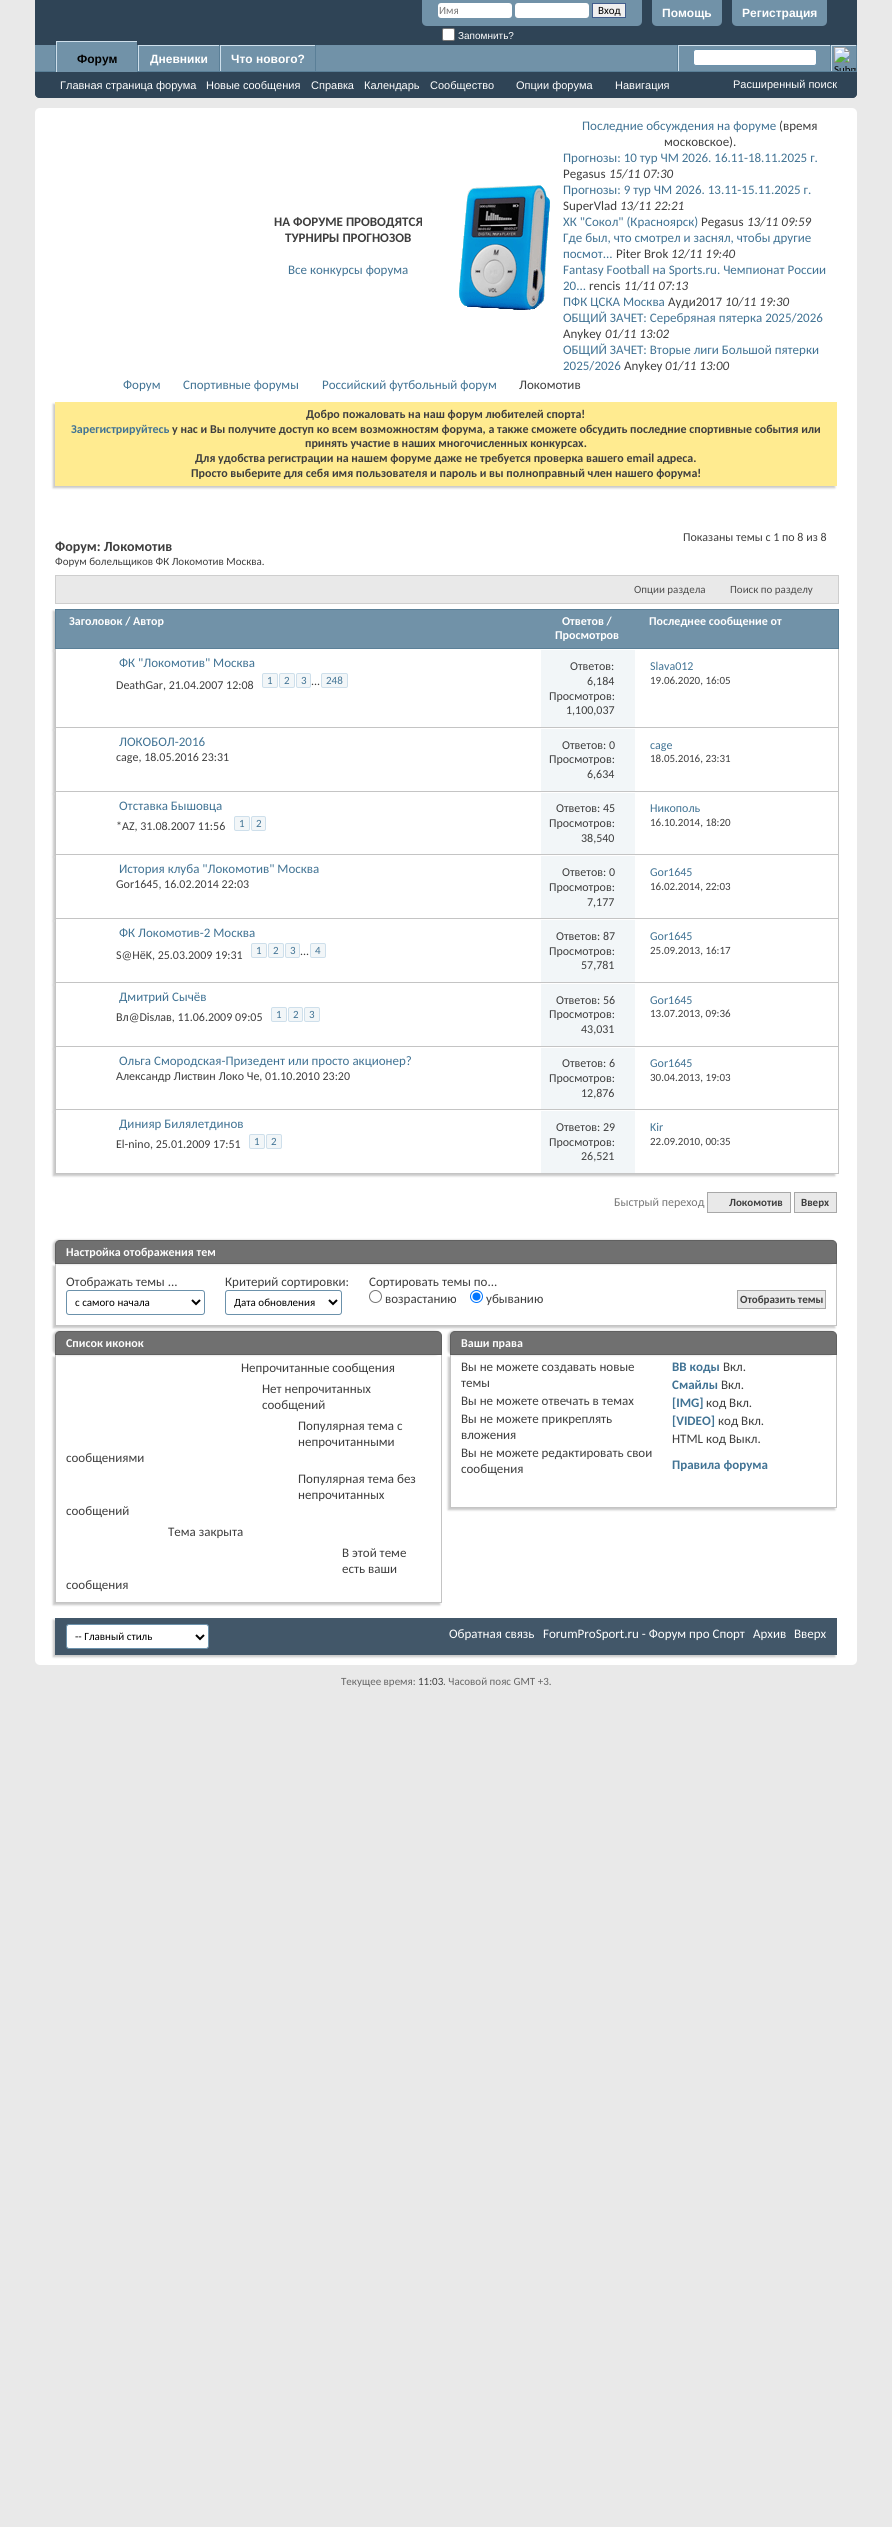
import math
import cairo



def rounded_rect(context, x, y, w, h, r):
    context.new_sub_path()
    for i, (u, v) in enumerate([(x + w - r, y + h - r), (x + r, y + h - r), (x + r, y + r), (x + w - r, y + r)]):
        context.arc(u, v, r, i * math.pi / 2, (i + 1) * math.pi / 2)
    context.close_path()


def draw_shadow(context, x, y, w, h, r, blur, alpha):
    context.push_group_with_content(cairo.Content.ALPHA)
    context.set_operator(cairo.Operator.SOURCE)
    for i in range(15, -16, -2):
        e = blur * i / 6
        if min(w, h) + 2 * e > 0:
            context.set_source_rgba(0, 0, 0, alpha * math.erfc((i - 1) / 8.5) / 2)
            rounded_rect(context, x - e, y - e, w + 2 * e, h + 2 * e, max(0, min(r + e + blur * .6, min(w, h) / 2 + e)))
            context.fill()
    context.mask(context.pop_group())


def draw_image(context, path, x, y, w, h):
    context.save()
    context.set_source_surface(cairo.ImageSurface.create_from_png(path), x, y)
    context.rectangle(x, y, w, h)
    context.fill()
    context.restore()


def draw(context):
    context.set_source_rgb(233 / 255, 233 / 255, 233 / 255)
    context.paint()
    context.set_source_rgb(47 / 255, 68 / 255, 86 / 255)
    context.new_path()
    context.move_to(35, 0)
    context.line_to(857, 0)
    context.line_to(857, 93)
    context.curve_to(857, 96, 855, 98, 852, 98)
    context.line_to(40, 98)
    context.curve_to(37, 98, 35, 96, 35, 93)
    context.close_path()
    context.fill()
    context.set_source_rgb(113 / 255, 146 / 255, 168 / 255)
    context.new_path()
    context.move_to(422, 0)
    context.line_to(642, 0)
    context.line_to(642, 21)
    context.curve_to(642, 24, 640, 26, 637, 26)
    context.line_to(427, 26)
    context.curve_to(424, 26, 422, 24, 422, 21)
    context.close_path()
    context.fill()
    context.set_source_rgb(1, 1, 1)
    rounded_rect(context, 438, 3, 74, 15, 3)
    context.fill()
    rounded_rect(context, 515, 3, 74, 15, 3)
    context.fill()
    context.set_source_rgb(239 / 255, 239 / 255, 239 / 255)
    context.rectangle(592.5, 3.5, 33, 14)
    context.fill_preserve()
    context.set_source_rgb(65 / 255, 93 / 255, 141 / 255)
    context.set_line_width(1)
    context.stroke()
    context.set_source_rgb(1, 1, 1)
    rounded_rect(context, 442.5, 28.5, 12, 12, 1.5)
    context.fill_preserve()
    context.set_source_rgb(118 / 255, 118 / 255, 118 / 255)
    context.stroke()
    context.set_source_rgb(113 / 255, 146 / 255, 168 / 255)
    context.new_path()
    context.move_to(652, 0)
    context.line_to(722, 0)
    context.line_to(722, 21)
    context.curve_to(722, 24, 720, 26, 717, 26)
    context.line_to(657, 26)
    context.curve_to(654, 26, 652, 24, 652, 21)
    context.close_path()
    context.fill()
    context.new_path()
    context.move_to(732, 0)
    context.line_to(827, 0)
    context.line_to(827, 21)
    context.curve_to(827, 24, 825, 26, 822, 26)
    context.line_to(737, 26)
    context.curve_to(734, 26, 732, 24, 732, 21)
    context.close_path()
    context.fill()
    context.set_source_rgb(47 / 255, 68 / 255, 86 / 255)
    context.new_path()
    context.move_to(35, 45)
    context.line_to(857, 45)
    context.line_to(857, 93)
    context.curve_to(857, 96, 855, 98, 852, 98)
    context.line_to(40, 98)
    context.curve_to(37, 98, 35, 96, 35, 93)
    context.close_path()
    context.fill()
    context.set_source_rgb(113 / 255, 146 / 255, 168 / 255)
    context.rectangle(35, 45, 821, 26)
    context.fill()
    context.set_source_rgb(90 / 255, 127 / 255, 151 / 255)
    context.rectangle(137, 45, 1, 26)
    context.fill()
    context.rectangle(55, 45, 1, 26)
    context.fill()
    context.rectangle(219, 45, 1, 27)
    context.fill()
    context.set_source_rgb(206 / 255, 223 / 255, 235 / 255)
    context.rectangle(138, 45, 81, 1)
    context.fill()
    context.rectangle(138, 45, 1, 27)
    context.fill()
    context.set_source_rgb(90 / 255, 127 / 255, 151 / 255)
    context.rectangle(315, 45, 1, 27)
    context.fill()
    context.set_source_rgb(206 / 255, 223 / 255, 235 / 255)
    context.rectangle(220, 45, 95, 1)
    context.fill()
    context.rectangle(220, 45, 1, 27)
    context.fill()
    context.set_source_rgb(90 / 255, 127 / 255, 151 / 255)
    context.rectangle(35, 71, 822, 1)
    context.fill()
    context.set_source_rgb(113 / 255, 146 / 255, 168 / 255)
    context.rectangle(57, 42, 80, 30)
    context.fill()
    context.set_source_rgb(206 / 255, 223 / 255, 235 / 255)
    context.rectangle(56, 41, 81, 1)
    context.fill()
    context.rectangle(56, 41, 1, 31)
    context.fill()
    context.set_source_rgb(90 / 255, 127 / 255, 151 / 255)
    context.rectangle(677, 45, 1, 26)
    context.fill()
    context.set_source_rgb(206 / 255, 223 / 255, 235 / 255)
    context.rectangle(678, 45, 152, 1)
    context.fill()
    context.rectangle(678, 45, 1, 26)
    context.fill()
    context.set_source_rgb(1, 1, 1)
    rounded_rect(context, 693.5, 49.5, 123, 16, 2.5)
    context.fill_preserve()
    context.set_source_rgb(107 / 255, 145 / 255, 171 / 255)
    context.stroke()
    context.set_source_rgb(90 / 255, 127 / 255, 151 / 255)
    context.rectangle(856, 45, 1, 26)
    context.fill()
    context.rectangle(830, 45, 1, 26)
    context.fill()
    context.set_source_rgb(206 / 255, 223 / 255, 235 / 255)
    context.rectangle(831, 45, 25, 1)
    context.fill()
    context.rectangle(831, 45, 1, 26)
    context.fill()
    draw_image(context, "images/1.png", 834, 47, 22, 24)
    context.set_source_rgb(1, 1, 1)
    rounded_rect(context, 35, 108, 822, 1557, 5)
    context.fill()
    draw_image(context, "images/2.png", 459, 185, 91, 125)
    context.set_source_rgb(200 / 255, 200 / 255, 200 / 255)
    draw_shadow(context, 53, 404, 782, 84, 0, 1, 1)
    context.set_source_rgb(1, 235 / 255, 144 / 255)
    context.rectangle(55, 402, 782, 84)
    context.fill()
    context.set_source_rgb(233 / 255, 233 / 255, 233 / 255)
    context.rectangle(55.5, 575.5, 783, 28)
    context.fill_preserve()
    context.set_source_rgb(206 / 255, 206 / 255, 206 / 255)
    context.stroke()
    context.set_source_rgb(200 / 255, 200 / 255, 200 / 255)
    draw_shadow(context, 53, 611, 784, 40, 0, 1, 1)
    context.set_source_rgb(113 / 255, 146 / 255, 168 / 255)
    context.rectangle(55.5, 609.5, 783, 39)
    context.fill_preserve()
    context.set_source_rgb(90 / 255, 127 / 255, 151 / 255)
    context.stroke()
    context.set_source_rgb(200 / 255, 200 / 255, 200 / 255)
    draw_shadow(context, 53, 651, 782, 79, 0, 1, 1)
    context.set_source_rgb(1, 1, 1)
    context.rectangle(56, 649, 782, 78)
    context.fill()
    context.set_source_rgb(196 / 255, 196 / 255, 196 / 255)
    context.rectangle(838, 649, 1, 79)
    context.fill()
    context.rectangle(55, 727, 784, 1)
    context.fill()
    context.rectangle(55, 649, 1, 79)
    context.fill()
    context.set_source_rgb(242 / 255, 246 / 255, 248 / 255)
    rounded_rect(context, 262.5, 673.5, 15, 14, 1.5)
    context.fill_preserve()
    context.set_source_rgb(206 / 255, 223 / 255, 235 / 255)
    context.stroke()
    context.set_source_rgb(242 / 255, 246 / 255, 248 / 255)
    rounded_rect(context, 279.5, 673.5, 15, 14, 1.5)
    context.fill_preserve()
    context.set_source_rgb(206 / 255, 223 / 255, 235 / 255)
    context.stroke()
    context.set_source_rgb(242 / 255, 246 / 255, 248 / 255)
    rounded_rect(context, 296.5, 673.5, 14, 14, 1.5)
    context.fill_preserve()
    context.set_source_rgb(206 / 255, 223 / 255, 235 / 255)
    context.stroke()
    context.set_source_rgb(242 / 255, 246 / 255, 248 / 255)
    rounded_rect(context, 321.5, 673.5, 26, 14, 1.5)
    context.fill_preserve()
    context.set_source_rgb(206 / 255, 223 / 255, 235 / 255)
    context.stroke()
    context.set_source_rgb(242 / 255, 246 / 255, 248 / 255)
    context.rectangle(541, 650, 94, 77)
    context.fill()
    context.set_source_rgb(200 / 255, 200 / 255, 200 / 255)
    draw_shadow(context, 53, 730, 782, 64, 0, 1, 1)
    context.set_source_rgb(1, 1, 1)
    context.rectangle(56, 728, 781, 63)
    context.fill()
    context.set_source_rgb(196 / 255, 196 / 255, 196 / 255)
    context.rectangle(838, 728, 1, 64)
    context.fill()
    context.rectangle(55, 791, 784, 1)
    context.fill()
    context.rectangle(55, 728, 1, 64)
    context.fill()
    context.set_source_rgb(242 / 255, 246 / 255, 248 / 255)
    context.rectangle(541, 729, 94, 62)
    context.fill()
    context.set_source_rgb(200 / 255, 200 / 255, 200 / 255)
    draw_shadow(context, 53, 794, 782, 63, 0, 1, 1)
    context.set_source_rgb(1, 1, 1)
    context.rectangle(56, 792, 781, 62)
    context.fill()
    context.set_source_rgb(196 / 255, 196 / 255, 196 / 255)
    context.rectangle(838, 792, 1, 63)
    context.fill()
    context.rectangle(55, 854, 784, 1)
    context.fill()
    context.rectangle(55, 792, 1, 63)
    context.fill()
    context.set_source_rgb(242 / 255, 246 / 255, 248 / 255)
    rounded_rect(context, 234.5, 816.5, 15, 14, 1.5)
    context.fill_preserve()
    context.set_source_rgb(206 / 255, 223 / 255, 235 / 255)
    context.stroke()
    context.set_source_rgb(242 / 255, 246 / 255, 248 / 255)
    rounded_rect(context, 251.5, 816.5, 14, 14, 1.5)
    context.fill_preserve()
    context.set_source_rgb(206 / 255, 223 / 255, 235 / 255)
    context.stroke()
    context.set_source_rgb(242 / 255, 246 / 255, 248 / 255)
    context.rectangle(541, 793, 94, 61)
    context.fill()
    context.set_source_rgb(200 / 255, 200 / 255, 200 / 255)
    draw_shadow(context, 53, 857, 782, 64, 0, 1, 1)
    context.set_source_rgb(1, 1, 1)
    context.rectangle(56, 855, 781, 63)
    context.fill()
    context.set_source_rgb(196 / 255, 196 / 255, 196 / 255)
    context.rectangle(838, 855, 1, 64)
    context.fill()
    context.rectangle(55, 918, 784, 1)
    context.fill()
    context.rectangle(55, 855, 1, 64)
    context.fill()
    context.set_source_rgb(242 / 255, 246 / 255, 248 / 255)
    context.rectangle(541, 856, 94, 62)
    context.fill()
    context.set_source_rgb(200 / 255, 200 / 255, 200 / 255)
    draw_shadow(context, 53, 921, 782, 64, 0, 1, 1)
    context.set_source_rgb(1, 1, 1)
    context.rectangle(56, 919, 781, 63)
    context.fill()
    context.set_source_rgb(196 / 255, 196 / 255, 196 / 255)
    context.rectangle(838, 919, 1, 64)
    context.fill()
    context.rectangle(55, 982, 784, 1)
    context.fill()
    context.rectangle(55, 919, 1, 64)
    context.fill()
    context.set_source_rgb(242 / 255, 246 / 255, 248 / 255)
    rounded_rect(context, 251.5, 943.5, 15, 14, 1.5)
    context.fill_preserve()
    context.set_source_rgb(206 / 255, 223 / 255, 235 / 255)
    context.stroke()
    context.set_source_rgb(242 / 255, 246 / 255, 248 / 255)
    rounded_rect(context, 268.5, 943.5, 15, 14, 1.5)
    context.fill_preserve()
    context.set_source_rgb(206 / 255, 223 / 255, 235 / 255)
    context.stroke()
    context.set_source_rgb(242 / 255, 246 / 255, 248 / 255)
    rounded_rect(context, 285.5, 943.5, 14, 14, 1.5)
    context.fill_preserve()
    context.set_source_rgb(206 / 255, 223 / 255, 235 / 255)
    context.stroke()
    context.set_source_rgb(242 / 255, 246 / 255, 248 / 255)
    rounded_rect(context, 310.5, 943.5, 15, 14, 1.5)
    context.fill_preserve()
    context.set_source_rgb(206 / 255, 223 / 255, 235 / 255)
    context.stroke()
    context.set_source_rgb(242 / 255, 246 / 255, 248 / 255)
    context.rectangle(541, 920, 94, 62)
    context.fill()
    context.set_source_rgb(200 / 255, 200 / 255, 200 / 255)
    draw_shadow(context, 53, 985, 782, 64, 0, 1, 1)
    context.set_source_rgb(1, 1, 1)
    context.rectangle(56, 983, 781, 63)
    context.fill()
    context.set_source_rgb(196 / 255, 196 / 255, 196 / 255)
    context.rectangle(838, 983, 1, 64)
    context.fill()
    context.rectangle(55, 1046, 784, 1)
    context.fill()
    context.rectangle(55, 983, 1, 64)
    context.fill()
    context.set_source_rgb(242 / 255, 246 / 255, 248 / 255)
    rounded_rect(context, 271.5, 1007.5, 15, 14, 1.5)
    context.fill_preserve()
    context.set_source_rgb(206 / 255, 223 / 255, 235 / 255)
    context.stroke()
    context.set_source_rgb(242 / 255, 246 / 255, 248 / 255)
    rounded_rect(context, 288.5, 1007.5, 14, 14, 1.5)
    context.fill_preserve()
    context.set_source_rgb(206 / 255, 223 / 255, 235 / 255)
    context.stroke()
    context.set_source_rgb(242 / 255, 246 / 255, 248 / 255)
    rounded_rect(context, 304.5, 1007.5, 15, 14, 1.5)
    context.fill_preserve()
    context.set_source_rgb(206 / 255, 223 / 255, 235 / 255)
    context.stroke()
    context.set_source_rgb(242 / 255, 246 / 255, 248 / 255)
    context.rectangle(541, 984, 94, 62)
    context.fill()
    context.set_source_rgb(200 / 255, 200 / 255, 200 / 255)
    draw_shadow(context, 53, 1049, 782, 63, 0, 1, 1)
    context.set_source_rgb(1, 1, 1)
    context.rectangle(56, 1047, 781, 62)
    context.fill()
    context.set_source_rgb(196 / 255, 196 / 255, 196 / 255)
    context.rectangle(838, 1047, 1, 63)
    context.fill()
    context.rectangle(55, 1109, 784, 1)
    context.fill()
    context.rectangle(55, 1047, 1, 63)
    context.fill()
    context.set_source_rgb(242 / 255, 246 / 255, 248 / 255)
    context.rectangle(541, 1048, 94, 61)
    context.fill()
    context.set_source_rgb(200 / 255, 200 / 255, 200 / 255)
    draw_shadow(context, 53, 1112, 782, 64, 0, 1, 1)
    context.set_source_rgb(1, 1, 1)
    context.rectangle(56, 1110, 781, 63)
    context.fill()
    context.set_source_rgb(196 / 255, 196 / 255, 196 / 255)
    context.rectangle(838, 1110, 1, 64)
    context.fill()
    context.rectangle(55, 1173, 784, 1)
    context.fill()
    context.rectangle(55, 1110, 1, 64)
    context.fill()
    context.set_source_rgb(242 / 255, 246 / 255, 248 / 255)
    rounded_rect(context, 249.5, 1134.5, 15, 14, 1.5)
    context.fill_preserve()
    context.set_source_rgb(206 / 255, 223 / 255, 235 / 255)
    context.stroke()
    context.set_source_rgb(242 / 255, 246 / 255, 248 / 255)
    rounded_rect(context, 266.5, 1134.5, 15, 14, 1.5)
    context.fill_preserve()
    context.set_source_rgb(206 / 255, 223 / 255, 235 / 255)
    context.stroke()
    context.set_source_rgb(242 / 255, 246 / 255, 248 / 255)
    context.rectangle(541, 1111, 94, 62)
    context.fill()
    context.set_source_rgb(233 / 255, 233 / 255, 233 / 255)
    context.rectangle(707.5, 1192.5, 83, 20)
    context.fill_preserve()
    context.set_source_rgb(168 / 255, 168 / 255, 168 / 255)
    context.stroke()
    context.set_source_rgb(233 / 255, 233 / 255, 233 / 255)
    context.rectangle(794.5, 1192.5, 42, 20)
    context.fill_preserve()
    context.set_source_rgb(168 / 255, 168 / 255, 168 / 255)
    context.stroke()
    context.save()
    context.set_fill_rule(cairo.FillRule.EVEN_ODD)
    context.new_path()
    context.move_to(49, 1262)
    context.line_to(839, 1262)
    context.line_to(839, 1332)
    context.line_to(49, 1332)
    context.close_path()
    context.move_to(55, 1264)
    context.line_to(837, 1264)
    context.line_to(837, 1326)
    context.line_to(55, 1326)
    context.close_path()
    context.clip()
    context.set_source_rgb(200 / 255, 200 / 255, 200 / 255)
    draw_shadow(context, 53, 1266, 782, 62, 0, 1, 1)
    context.restore()
    context.set_source_rgb(196 / 255, 196 / 255, 196 / 255)
    context.rectangle(836, 1264, 1, 62)
    context.fill()
    context.rectangle(55, 1325, 782, 1)
    context.fill()
    context.rectangle(55, 1264, 1, 62)
    context.fill()
    context.set_source_rgb(200 / 255, 200 / 255, 200 / 255)
    draw_shadow(context, 53, 1240, 782, 24, 5, 1, 1)
    context.set_source_rgb(112 / 255, 112 / 255, 112 / 255)
    context.new_path()
    context.move_to(60, 1240.5)
    context.line_to(832, 1240.5)
    context.curve_to(834.5, 1240.5, 836.5, 1242.5, 836.5, 1245)
    context.line_to(836.5, 1263.5)
    context.line_to(55.5, 1263.5)
    context.line_to(55.5, 1245)
    context.curve_to(55.5, 1242.5, 57.5, 1240.5, 60, 1240.5)
    context.close_path()
    context.fill_preserve()
    context.set_source_rgb(96 / 255, 96 / 255, 96 / 255)
    context.stroke()
    rounded_rect(context, 66.5, 1290.5, 138, 24, 2.5)
    context.set_source_rgb(107 / 255, 145 / 255, 171 / 255)
    context.stroke()
    context.new_path()
    context.move_to(192, 1300)
    context.line_to(196, 1304)
    context.line_to(200, 1300)
    context.set_source_rgb(0, 0, 0)
    context.set_line_width(2)
    context.stroke()
    rounded_rect(context, 225.5, 1290.5, 116, 24, 2.5)
    context.set_source_rgb(107 / 255, 145 / 255, 171 / 255)
    context.set_line_width(1)
    context.stroke()
    context.new_path()
    context.move_to(329, 1300)
    context.line_to(333, 1304)
    context.line_to(337, 1300)
    context.set_source_rgb(0, 0, 0)
    context.set_line_width(2)
    context.stroke()
    context.arc(375.5, 1296.5, 6, 0, 2 * math.pi)
    context.set_source_rgb(118 / 255, 118 / 255, 118 / 255)
    context.set_line_width(1)
    context.stroke()
    context.arc(476.5, 1296.5, 6, 0, 2 * math.pi)
    context.set_source_rgb(0, 117 / 255, 1)
    context.stroke()
    context.arc(476.5, 1296.5, 4, 0, 2 * math.pi)
    context.fill()
    context.set_source_rgb(233 / 255, 233 / 255, 233 / 255)
    context.rectangle(737.5, 1290.5, 88, 18)
    context.fill_preserve()
    context.set_source_rgb(168 / 255, 168 / 255, 168 / 255)
    context.stroke()
    context.save()
    context.set_fill_rule(cairo.FillRule.EVEN_ODD)
    context.new_path()
    context.move_to(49, 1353)
    context.line_to(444, 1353)
    context.line_to(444, 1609)
    context.line_to(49, 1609)
    context.close_path()
    context.move_to(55, 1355)
    context.line_to(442, 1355)
    context.line_to(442, 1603)
    context.line_to(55, 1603)
    context.close_path()
    context.clip()
    context.set_source_rgb(200 / 255, 200 / 255, 200 / 255)
    draw_shadow(context, 53, 1357, 387, 248, 0, 1, 1)
    context.restore()
    context.set_source_rgb(196 / 255, 196 / 255, 196 / 255)
    context.rectangle(441, 1355, 1, 248)
    context.fill()
    context.rectangle(55, 1602, 387, 1)
    context.fill()
    context.rectangle(55, 1355, 1, 248)
    context.fill()
    context.set_source_rgb(200 / 255, 200 / 255, 200 / 255)
    draw_shadow(context, 53, 1331, 387, 24, 5, 1, 1)
    context.set_source_rgb(112 / 255, 112 / 255, 112 / 255)
    context.new_path()
    context.move_to(60, 1331.5)
    context.line_to(437, 1331.5)
    context.curve_to(439.5, 1331.5, 441.5, 1333.5, 441.5, 1336)
    context.line_to(441.5, 1354.5)
    context.line_to(55.5, 1354.5)
    context.line_to(55.5, 1336)
    context.curve_to(55.5, 1333.5, 57.5, 1331.5, 60, 1331.5)
    context.close_path()
    context.fill_preserve()
    context.set_source_rgb(96 / 255, 96 / 255, 96 / 255)
    context.stroke()
    context.save()
    context.set_fill_rule(cairo.FillRule.EVEN_ODD)
    context.new_path()
    context.move_to(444, 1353)
    context.line_to(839, 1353)
    context.line_to(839, 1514)
    context.line_to(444, 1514)
    context.close_path()
    context.move_to(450, 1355)
    context.line_to(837, 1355)
    context.line_to(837, 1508)
    context.line_to(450, 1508)
    context.close_path()
    context.clip()
    context.set_source_rgb(200 / 255, 200 / 255, 200 / 255)
    draw_shadow(context, 448, 1357, 387, 153, 0, 1, 1)
    context.restore()
    context.set_source_rgb(196 / 255, 196 / 255, 196 / 255)
    context.rectangle(836, 1355, 1, 153)
    context.fill()
    context.rectangle(450, 1507, 387, 1)
    context.fill()
    context.rectangle(450, 1355, 1, 153)
    context.fill()
    context.set_source_rgb(200 / 255, 200 / 255, 200 / 255)
    draw_shadow(context, 448, 1331, 387, 24, 5, 1, 1)
    context.set_source_rgb(112 / 255, 112 / 255, 112 / 255)
    context.new_path()
    context.move_to(455, 1331.5)
    context.line_to(832, 1331.5)
    context.curve_to(834.5, 1331.5, 836.5, 1333.5, 836.5, 1336)
    context.line_to(836.5, 1354.5)
    context.line_to(450.5, 1354.5)
    context.line_to(450.5, 1336)
    context.curve_to(450.5, 1333.5, 452.5, 1331.5, 455, 1331.5)
    context.close_path()
    context.fill_preserve()
    context.set_source_rgb(96 / 255, 96 / 255, 96 / 255)
    context.stroke()
    context.set_source_rgb(200 / 255, 200 / 255, 200 / 255)
    draw_shadow(context, 53, 1620, 782, 37, 0, 1, 1)
    context.set_source_rgb(66 / 255, 87 / 255, 105 / 255)
    context.rectangle(55, 1618, 782, 37)
    context.fill()
    context.set_source_rgb(1, 1, 1)
    rounded_rect(context, 66.5, 1624.5, 142, 24, 2.5)
    context.fill_preserve()
    context.set_source_rgb(107 / 255, 145 / 255, 171 / 255)
    context.stroke()
    context.new_path()
    context.move_to(196, 1635)
    context.line_to(200, 1639)
    context.line_to(204, 1635)
    context.set_source_rgb(0, 0, 0)
    context.set_line_width(2)
    context.stroke()
    context.select_font_face("Carlito")
    context.set_font_size(11)
    context.set_source_rgb(119 / 255, 119 / 255, 119 / 255)
    context.move_to(439, 14)
    context.show_text("Имя")
    context.set_source_rgb(0, 0, 0)
    context.move_to(598, 14)
    context.show_text("Вход")
    context.select_font_face("Liberation Sans")
    context.set_font_size(10)
    context.set_source_rgb(1, 1, 1)
    context.move_to(458, 39)
    context.show_text("Запомнить?")
    context.select_font_face("Liberation Sans", cairo.FontSlant.NORMAL, cairo.FontWeight.BOLD)
    context.set_font_size(12)
    context.move_to(662, 17)
    context.show_text("Помощь")
    context.move_to(742, 17)
    context.show_text("Регистрация")
    context.set_source_rgb(0, 0, 0)
    context.move_to(77, 63)
    context.show_text("Форум")
    context.select_font_face("Liberation Sans")
    context.set_font_size(11)
    context.set_source_rgb(1, 1, 1)
    context.move_to(60, 89)
    context.show_text("Главная страница форума")
    context.move_to(206, 89)
    context.show_text("Новые сообщения")
    context.move_to(311, 89)
    context.show_text("Справка")
    context.move_to(364, 89)
    context.show_text("Календарь")
    context.move_to(430, 89)
    context.show_text("Сообщество")
    context.move_to(516, 89)
    context.show_text("Опции форума")
    context.move_to(615, 89)
    context.show_text("Навигация")
    context.select_font_face("Liberation Sans", cairo.FontSlant.NORMAL, cairo.FontWeight.BOLD)
    context.set_font_size(12)
    context.move_to(150, 63)
    context.show_text("Дневники")
    context.move_to(231, 63)
    context.show_text("Что нового?")
    context.select_font_face("Liberation Sans")
    context.set_font_size(11)
    context.move_to(733, 88)
    context.show_text("Расширенный поиск")
    context.select_font_face("Carlito", cairo.FontSlant.NORMAL, cairo.FontWeight.BOLD)
    context.set_font_size(13)
    context.set_source_rgb(62 / 255, 62 / 255, 62 / 255)
    context.move_to(274, 226)
    context.show_text("НА ФОРУМЕ ПРОВОДЯТСЯ")
    context.move_to(285, 242)
    context.show_text("ТУРНИРЫ ПРОГНОЗОВ")
    context.select_font_face("Carlito")
    context.set_source_rgb(65 / 255, 115 / 255, 148 / 255)
    context.move_to(288, 274)
    context.show_text("Все конкурсы форума")
    context.move_to(582, 130)
    context.show_text("Последние обсуждения на форуме")
    context.set_source_rgb(62 / 255, 62 / 255, 62 / 255)
    context.move_to(779, 130)
    context.show_text("(время")
    context.move_to(664, 146)
    context.show_text("московское).")
    context.set_source_rgb(65 / 255, 115 / 255, 148 / 255)
    context.move_to(563, 162)
    context.show_text("Прогнозы: 10 тур ЧМ 2026. 16.11-18.11.2025 г.")
    context.set_source_rgb(62 / 255, 62 / 255, 62 / 255)
    context.move_to(563, 178)
    context.show_text("Pegasus")
    context.select_font_face("Carlito", cairo.FontSlant.ITALIC)
    context.move_to(609, 178)
    context.show_text("15/11 07:30")
    context.select_font_face("Carlito")
    context.set_source_rgb(65 / 255, 115 / 255, 148 / 255)
    context.move_to(563, 194)
    context.show_text("Прогнозы: 9 тур ЧМ 2026. 13.11-15.11.2025 г.")
    context.set_source_rgb(62 / 255, 62 / 255, 62 / 255)
    context.move_to(563, 210)
    context.show_text("SuperVlad")
    context.select_font_face("Carlito", cairo.FontSlant.ITALIC)
    context.move_to(620, 210)
    context.show_text("13/11 22:21")
    context.select_font_face("Carlito")
    context.set_source_rgb(65 / 255, 115 / 255, 148 / 255)
    context.move_to(563, 226)
    context.show_text("ХК \"Сокол\" (Красноярск)")
    context.set_source_rgb(62 / 255, 62 / 255, 62 / 255)
    context.move_to(701, 226)
    context.show_text("Pegasus")
    context.select_font_face("Carlito", cairo.FontSlant.ITALIC)
    context.move_to(747, 226)
    context.show_text("13/11 09:59")
    context.select_font_face("Carlito")
    context.set_source_rgb(65 / 255, 115 / 255, 148 / 255)
    context.move_to(563, 242)
    context.show_text("Где был, что смотрел и заснял, чтобы другие")
    context.move_to(563, 258)
    context.show_text("посмот...")
    context.set_source_rgb(62 / 255, 62 / 255, 62 / 255)
    context.move_to(616, 258)
    context.show_text("Piter Brok")
    context.select_font_face("Carlito", cairo.FontSlant.ITALIC)
    context.move_to(671, 258)
    context.show_text("12/11 19:40")
    context.select_font_face("Carlito")
    context.set_source_rgb(65 / 255, 115 / 255, 148 / 255)
    context.move_to(563, 274)
    context.show_text("Fantasy Football на Sports.ru. Чемпионат России")
    context.move_to(563, 290)
    context.show_text("20...")
    context.set_source_rgb(62 / 255, 62 / 255, 62 / 255)
    context.move_to(589, 290)
    context.show_text("rencis")
    context.select_font_face("Carlito", cairo.FontSlant.ITALIC)
    context.move_to(624, 290)
    context.show_text("11/11 07:13")
    context.select_font_face("Carlito")
    context.set_source_rgb(65 / 255, 115 / 255, 148 / 255)
    context.move_to(563, 306)
    context.show_text("ПФК ЦСКА Москва")
    context.set_source_rgb(62 / 255, 62 / 255, 62 / 255)
    context.move_to(668, 306)
    context.show_text("Ауди2017")
    context.select_font_face("Carlito", cairo.FontSlant.ITALIC)
    context.move_to(725, 306)
    context.show_text("10/11 19:30")
    context.select_font_face("Carlito")
    context.set_source_rgb(65 / 255, 115 / 255, 148 / 255)
    context.move_to(563, 322)
    context.show_text("ОБЩИЙ ЗАЧЕТ: Серебряная пятерка 2025/2026")
    context.set_source_rgb(62 / 255, 62 / 255, 62 / 255)
    context.move_to(563, 338)
    context.show_text("Anykey")
    context.select_font_face("Carlito", cairo.FontSlant.ITALIC)
    context.move_to(605, 338)
    context.show_text("01/11 13:02")
    context.select_font_face("Carlito")
    context.set_source_rgb(65 / 255, 115 / 255, 148 / 255)
    context.move_to(563, 354)
    context.show_text("ОБЩИЙ ЗАЧЕТ: Вторые лиги Большой пятерки")
    context.move_to(563, 370)
    context.show_text("2025/2026")
    context.set_source_rgb(62 / 255, 62 / 255, 62 / 255)
    context.move_to(624, 370)
    context.show_text("Anykey")
    context.select_font_face("Carlito", cairo.FontSlant.ITALIC)
    context.move_to(665, 370)
    context.show_text("01/11 13:00")
    context.select_font_face("Carlito")
    context.set_source_rgb(65 / 255, 115 / 255, 148 / 255)
    context.move_to(123, 389)
    context.show_text("Форум")
    context.move_to(183, 389)
    context.show_text("Спортивные форумы")
    context.move_to(322, 389)
    context.show_text("Российский футбольный форум")
    context.set_source_rgb(62 / 255, 62 / 255, 62 / 255)
    context.move_to(519, 389)
    context.show_text("Локомотив")
    context.select_font_face("Carlito", cairo.FontSlant.NORMAL, cairo.FontWeight.BOLD)
    context.set_font_size(12)
    context.move_to(306, 418)
    context.show_text("Добро пожаловать на наш форум любителей спорта!")
    context.set_source_rgb(65 / 255, 115 / 255, 148 / 255)
    context.move_to(71, 433)
    context.show_text("Зарегистрируйтесь")
    context.set_source_rgb(62 / 255, 62 / 255, 62 / 255)
    context.move_to(172, 433)
    context.show_text("у нас и Вы получите доступ ко всем возможностям форума, а также сможете обсудить последние спортивные события или")
    context.move_to(305, 447)
    context.show_text("принять участие в наших многочисленных конкурсах.")
    context.move_to(195, 462)
    context.show_text("Для удобства регистрации на нашем форуме даже не требуется проверка вашего email адреса.")
    context.move_to(191, 477)
    context.show_text("Просто выберите для себя имя пользователя и пароль и вы полноправный член нашего форума!")
    context.select_font_face("Carlito")
    context.move_to(683, 541)
    context.show_text("Показаны темы с 1 по 8 из 8")
    context.select_font_face("Carlito", cairo.FontSlant.NORMAL, cairo.FontWeight.BOLD)
    context.set_font_size(14)
    context.move_to(55, 551)
    context.show_text("Форум: Локомотив")
    context.select_font_face("Carlito")
    context.set_font_size(11)
    context.move_to(55, 565)
    context.show_text("Форум болельщиков ФК Локомотив Москва.")
    context.set_source_rgb(78 / 255, 78 / 255, 78 / 255)
    context.move_to(634, 593)
    context.show_text("Опции раздела")
    context.move_to(730, 593)
    context.show_text("Поиск по разделу")
    context.select_font_face("Carlito", cairo.FontSlant.NORMAL, cairo.FontWeight.BOLD)
    context.set_font_size(12)
    context.set_source_rgb(1, 1, 1)
    context.move_to(69, 625)
    context.show_text("Заголовок / Автор")
    context.move_to(562, 625)
    context.show_text("Ответов /")
    context.move_to(555, 639)
    context.show_text("Просмотров")
    context.move_to(649, 625)
    context.show_text("Последнее сообщение от")
    context.select_font_face("Carlito")
    context.set_font_size(13)
    context.set_source_rgb(65 / 255, 115 / 255, 148 / 255)
    context.move_to(119, 667)
    context.show_text("ФК \"Локомотив\" Москва")
    context.set_font_size(12)
    context.set_source_rgb(62 / 255, 62 / 255, 62 / 255)
    context.move_to(116, 689)
    context.show_text("DeathGar, 21.04.2007 12:08")
    context.set_font_size(11)
    context.set_source_rgb(65 / 255, 115 / 255, 148 / 255)
    context.move_to(267, 684)
    context.show_text("1")
    context.move_to(284, 684)
    context.show_text("2")
    context.move_to(301, 684)
    context.show_text("3")
    context.set_font_size(12)
    context.set_source_rgb(62 / 255, 62 / 255, 62 / 255)
    context.move_to(311, 685)
    context.show_text("...")
    context.set_font_size(11)
    context.set_source_rgb(65 / 255, 115 / 255, 148 / 255)
    context.move_to(326, 684)
    context.show_text("248")
    context.set_font_size(12)
    context.set_source_rgb(62 / 255, 62 / 255, 62 / 255)
    context.move_to(570, 670)
    context.show_text("Ответов:")
    context.move_to(587, 685)
    context.show_text("6,184")
    context.move_to(549, 700)
    context.show_text("Просмотров:")
    context.move_to(566, 714)
    context.show_text("1,100,037")
    context.set_source_rgb(65 / 255, 115 / 255, 148 / 255)
    context.move_to(650, 670)
    context.show_text("Slava012")
    context.set_font_size(11)
    context.set_source_rgb(62 / 255, 62 / 255, 62 / 255)
    context.move_to(650, 684)
    context.show_text("19.06.2020, 16:05")
    context.set_font_size(13)
    context.set_source_rgb(65 / 255, 115 / 255, 148 / 255)
    context.move_to(119, 746)
    context.show_text("ЛОКОБОЛ-2016")
    context.set_font_size(12)
    context.set_source_rgb(62 / 255, 62 / 255, 62 / 255)
    context.move_to(116, 761)
    context.show_text("cage, 18.05.2016 23:31")
    context.move_to(562, 749)
    context.show_text("Ответов: 0")
    context.move_to(549, 763)
    context.show_text("Просмотров:")
    context.move_to(587, 778)
    context.show_text("6,634")
    context.set_source_rgb(65 / 255, 115 / 255, 148 / 255)
    context.move_to(650, 749)
    context.show_text("cage")
    context.set_font_size(11)
    context.set_source_rgb(62 / 255, 62 / 255, 62 / 255)
    context.move_to(650, 762)
    context.show_text("18.05.2016, 23:31")
    context.set_font_size(13)
    context.set_source_rgb(65 / 255, 115 / 255, 148 / 255)
    context.move_to(119, 810)
    context.show_text("Отставка Бышовца")
    context.set_font_size(12)
    context.set_source_rgb(62 / 255, 62 / 255, 62 / 255)
    context.move_to(116, 830)
    context.show_text("*AZ, 31.08.2007 11:56")
    context.set_font_size(11)
    context.set_source_rgb(65 / 255, 115 / 255, 148 / 255)
    context.move_to(239, 827)
    context.show_text("1")
    context.move_to(256, 827)
    context.show_text("2")
    context.set_font_size(12)
    context.set_source_rgb(62 / 255, 62 / 255, 62 / 255)
    context.move_to(556, 812)
    context.show_text("Ответов: 45")
    context.move_to(549, 827)
    context.show_text("Просмотров:")
    context.move_to(581, 842)
    context.show_text("38,540")
    context.set_source_rgb(65 / 255, 115 / 255, 148 / 255)
    context.move_to(650, 812)
    context.show_text("Никополь")
    context.set_font_size(11)
    context.set_source_rgb(62 / 255, 62 / 255, 62 / 255)
    context.move_to(650, 826)
    context.show_text("16.10.2014, 18:20")
    context.set_font_size(13)
    context.set_source_rgb(65 / 255, 115 / 255, 148 / 255)
    context.move_to(119, 873)
    context.show_text("История клуба \"Локомотив\" Москва")
    context.set_font_size(12)
    context.set_source_rgb(62 / 255, 62 / 255, 62 / 255)
    context.move_to(116, 888)
    context.show_text("Gor1645, 16.02.2014 22:03")
    context.move_to(562, 876)
    context.show_text("Ответов: 0")
    context.move_to(549, 891)
    context.show_text("Просмотров:")
    context.move_to(587, 906)
    context.show_text("7,177")
    context.set_source_rgb(65 / 255, 115 / 255, 148 / 255)
    context.move_to(650, 876)
    context.show_text("Gor1645")
    context.set_font_size(11)
    context.set_source_rgb(62 / 255, 62 / 255, 62 / 255)
    context.move_to(650, 890)
    context.show_text("16.02.2014, 22:03")
    context.set_font_size(13)
    context.set_source_rgb(65 / 255, 115 / 255, 148 / 255)
    context.move_to(119, 937)
    context.show_text("ФК Локомотив-2 Москва")
    context.set_font_size(12)
    context.set_source_rgb(62 / 255, 62 / 255, 62 / 255)
    context.move_to(116, 959)
    context.show_text("S@HёK, 25.03.2009 19:31")
    context.set_font_size(11)
    context.set_source_rgb(65 / 255, 115 / 255, 148 / 255)
    context.move_to(256, 954)
    context.show_text("1")
    context.move_to(273, 954)
    context.show_text("2")
    context.move_to(290, 954)
    context.show_text("3")
    context.move_to(315, 954)
    context.show_text("4")
    context.set_font_size(12)
    context.set_source_rgb(62 / 255, 62 / 255, 62 / 255)
    context.move_to(300, 955)
    context.show_text("...")
    context.move_to(556, 940)
    context.show_text("Ответов: 87")
    context.move_to(549, 955)
    context.show_text("Просмотров:")
    context.move_to(581, 969)
    context.show_text("57,781")
    context.set_source_rgb(65 / 255, 115 / 255, 148 / 255)
    context.move_to(650, 940)
    context.show_text("Gor1645")
    context.set_font_size(11)
    context.set_source_rgb(62 / 255, 62 / 255, 62 / 255)
    context.move_to(650, 954)
    context.show_text("25.09.2013, 16:17")
    context.set_font_size(13)
    context.set_source_rgb(65 / 255, 115 / 255, 148 / 255)
    context.move_to(119, 1001)
    context.show_text("Дмитрий Сычёв")
    context.set_font_size(12)
    context.set_source_rgb(62 / 255, 62 / 255, 62 / 255)
    context.move_to(116, 1021)
    context.show_text("Вл@Disлав, 11.06.2009 09:05")
    context.set_font_size(11)
    context.set_source_rgb(65 / 255, 115 / 255, 148 / 255)
    context.move_to(276, 1018)
    context.show_text("1")
    context.move_to(293, 1018)
    context.show_text("2")
    context.move_to(309, 1018)
    context.show_text("3")
    context.set_font_size(12)
    context.set_source_rgb(62 / 255, 62 / 255, 62 / 255)
    context.move_to(556, 1004)
    context.show_text("Ответов: 56")
    context.move_to(549, 1018)
    context.show_text("Просмотров:")
    context.move_to(581, 1033)
    context.show_text("43,031")
    context.set_source_rgb(65 / 255, 115 / 255, 148 / 255)
    context.move_to(650, 1004)
    context.show_text("Gor1645")
    context.set_font_size(11)
    context.set_source_rgb(62 / 255, 62 / 255, 62 / 255)
    context.move_to(650, 1017)
    context.show_text("13.07.2013, 09:36")
    context.set_font_size(13)
    context.set_source_rgb(65 / 255, 115 / 255, 148 / 255)
    context.move_to(119, 1065)
    context.show_text("Ольга Смородская-Призедент или просто акционер?")
    context.set_font_size(12)
    context.set_source_rgb(62 / 255, 62 / 255, 62 / 255)
    context.move_to(116, 1080)
    context.show_text("Александр Листвин Локо Че, 01.10.2010 23:20")
    context.move_to(562, 1067)
    context.show_text("Ответов: 6")
    context.move_to(549, 1082)
    context.show_text("Просмотров:")
    context.move_to(581, 1097)
    context.show_text("12,876")
    context.set_source_rgb(65 / 255, 115 / 255, 148 / 255)
    context.move_to(650, 1067)
    context.show_text("Gor1645")
    context.set_font_size(11)
    context.set_source_rgb(62 / 255, 62 / 255, 62 / 255)
    context.move_to(650, 1081)
    context.show_text("30.04.2013, 19:03")
    context.set_font_size(13)
    context.set_source_rgb(65 / 255, 115 / 255, 148 / 255)
    context.move_to(119, 1128)
    context.show_text("Динияр Билялетдинов")
    context.set_font_size(12)
    context.set_source_rgb(62 / 255, 62 / 255, 62 / 255)
    context.move_to(116, 1148)
    context.show_text("El-nino, 25.01.2009 17:51")
    context.set_font_size(11)
    context.set_source_rgb(65 / 255, 115 / 255, 148 / 255)
    context.move_to(254, 1145)
    context.show_text("1")
    context.move_to(271, 1145)
    context.show_text("2")
    context.set_font_size(12)
    context.set_source_rgb(62 / 255, 62 / 255, 62 / 255)
    context.move_to(556, 1131)
    context.show_text("Ответов: 29")
    context.move_to(549, 1146)
    context.show_text("Просмотров:")
    context.move_to(581, 1160)
    context.show_text("26,521")
    context.set_source_rgb(65 / 255, 115 / 255, 148 / 255)
    context.move_to(650, 1131)
    context.show_text("Kir")
    context.set_font_size(11)
    context.set_source_rgb(62 / 255, 62 / 255, 62 / 255)
    context.move_to(650, 1145)
    context.show_text("22.09.2010, 00:35")
    context.set_font_size(12)
    context.set_source_rgb(119 / 255, 119 / 255, 119 / 255)
    context.move_to(614, 1206)
    context.show_text("Быстрый переход")
    context.select_font_face("Carlito", cairo.FontSlant.NORMAL, cairo.FontWeight.BOLD)
    context.set_font_size(11)
    context.set_source_rgb(62 / 255, 62 / 255, 62 / 255)
    context.move_to(729, 1206)
    context.show_text("Локомотив")
    context.move_to(801, 1206)
    context.show_text("Вверх")
    context.set_font_size(12)
    context.set_source_rgb(1, 1, 1)
    context.move_to(66, 1256)
    context.show_text("Настройка отображения тем")
    context.select_font_face("Carlito")
    context.set_font_size(13)
    context.set_source_rgb(62 / 255, 62 / 255, 62 / 255)
    context.move_to(66, 1286)
    context.show_text("Отображать темы ...")
    context.set_font_size(11)
    context.set_source_rgb(0, 0, 0)
    context.move_to(75, 1306)
    context.show_text("с самого начала")
    context.set_font_size(13)
    context.set_source_rgb(62 / 255, 62 / 255, 62 / 255)
    context.move_to(225, 1286)
    context.show_text("Критерий сортировки:")
    context.set_font_size(11)
    context.set_source_rgb(0, 0, 0)
    context.move_to(234, 1306)
    context.show_text("Дата обновления")
    context.set_font_size(13)
    context.set_source_rgb(62 / 255, 62 / 255, 62 / 255)
    context.move_to(369, 1286)
    context.show_text("Сортировать темы по...")
    context.move_to(385, 1303)
    context.show_text("возрастанию")
    context.move_to(486, 1303)
    context.show_text("убыванию")
    context.select_font_face("Carlito", cairo.FontSlant.NORMAL, cairo.FontWeight.BOLD)
    context.set_font_size(11)
    context.move_to(740, 1303)
    context.show_text("Отобразить темы")
    context.set_font_size(12)
    context.set_source_rgb(1, 1, 1)
    context.move_to(66, 1347)
    context.show_text("Список иконок")
    context.select_font_face("Carlito")
    context.set_font_size(13)
    context.set_source_rgb(62 / 255, 62 / 255, 62 / 255)
    context.move_to(241, 1372)
    context.show_text("Непрочитанные сообщения")
    context.move_to(262, 1393)
    context.show_text("Нет непрочитанных")
    context.move_to(262, 1409)
    context.show_text("сообщений")
    context.move_to(298, 1430)
    context.show_text("Популярная тема с")
    context.move_to(298, 1446)
    context.show_text("непрочитанными")
    context.move_to(66, 1462)
    context.show_text("сообщениями")
    context.move_to(298, 1483)
    context.show_text("Популярная тема без")
    context.move_to(298, 1499)
    context.show_text("непрочитанных")
    context.move_to(66, 1515)
    context.show_text("сообщений")
    context.move_to(168, 1536)
    context.show_text("Тема закрыта")
    context.move_to(342, 1557)
    context.show_text("В этой теме")
    context.move_to(342, 1573)
    context.show_text("есть ваши")
    context.move_to(66, 1589)
    context.show_text("сообщения")
    context.select_font_face("Carlito", cairo.FontSlant.NORMAL, cairo.FontWeight.BOLD)
    context.set_font_size(12)
    context.set_source_rgb(1, 1, 1)
    context.move_to(461, 1347)
    context.show_text("Ваши права")
    context.select_font_face("Carlito")
    context.set_font_size(13)
    context.set_source_rgb(62 / 255, 62 / 255, 62 / 255)
    context.move_to(461, 1371)
    context.show_text("Вы не можете создавать новые")
    context.move_to(461, 1387)
    context.show_text("темы")
    context.move_to(461, 1405)
    context.show_text("Вы не можете отвечать в темах")
    context.move_to(461, 1423)
    context.show_text("Вы не можете прикреплять")
    context.move_to(461, 1439)
    context.show_text("вложения")
    context.move_to(461, 1457)
    context.show_text("Вы не можете редактировать свои")
    context.move_to(461, 1473)
    context.show_text("сообщения")
    context.select_font_face("Carlito", cairo.FontSlant.NORMAL, cairo.FontWeight.BOLD)
    context.set_source_rgb(65 / 255, 115 / 255, 148 / 255)
    context.move_to(672, 1371)
    context.show_text("BB коды")
    context.select_font_face("Carlito")
    context.set_source_rgb(62 / 255, 62 / 255, 62 / 255)
    context.move_to(723, 1371)
    context.show_text("Вкл.")
    context.select_font_face("Carlito", cairo.FontSlant.NORMAL, cairo.FontWeight.BOLD)
    context.set_source_rgb(65 / 255, 115 / 255, 148 / 255)
    context.move_to(672, 1389)
    context.show_text("Смайлы")
    context.select_font_face("Carlito")
    context.set_source_rgb(62 / 255, 62 / 255, 62 / 255)
    context.move_to(721, 1389)
    context.show_text("Вкл.")
    context.select_font_face("Carlito", cairo.FontSlant.NORMAL, cairo.FontWeight.BOLD)
    context.set_source_rgb(65 / 255, 115 / 255, 148 / 255)
    context.move_to(672, 1407)
    context.show_text("[IMG]")
    context.select_font_face("Carlito")
    context.set_source_rgb(62 / 255, 62 / 255, 62 / 255)
    context.move_to(706, 1407)
    context.show_text("код Вкл.")
    context.select_font_face("Carlito", cairo.FontSlant.NORMAL, cairo.FontWeight.BOLD)
    context.set_source_rgb(65 / 255, 115 / 255, 148 / 255)
    context.move_to(672, 1425)
    context.show_text("[VIDEO]")
    context.select_font_face("Carlito")
    context.set_source_rgb(62 / 255, 62 / 255, 62 / 255)
    context.move_to(718, 1425)
    context.show_text("код Вкл.")
    context.move_to(672, 1443)
    context.show_text("HTML код Выкл.")
    context.select_font_face("Carlito", cairo.FontSlant.NORMAL, cairo.FontWeight.BOLD)
    context.set_source_rgb(65 / 255, 115 / 255, 148 / 255)
    context.move_to(672, 1469)
    context.show_text("Правила форума")
    context.select_font_face("Carlito")
    context.set_font_size(11)
    context.set_source_rgb(0, 0, 0)
    context.move_to(75, 1640)
    context.show_text("-- Главный стиль")
    context.set_font_size(13)
    context.set_source_rgb(1, 1, 1)
    context.move_to(449, 1638)
    context.show_text("Обратная связь")
    context.move_to(543, 1638)
    context.show_text("ForumProSport.ru - Форум про Спорт")
    context.move_to(753, 1638)
    context.show_text("Архив")
    context.move_to(794, 1638)
    context.show_text("Вверх")
    context.set_font_size(11)
    context.set_source_rgb(102 / 255, 102 / 255, 102 / 255)
    context.move_to(341, 1685)
    context.show_text("Текущее время:")
    context.set_source_rgb(62 / 255, 62 / 255, 62 / 255)
    context.move_to(418, 1685)
    context.show_text("11:03")
    context.set_source_rgb(102 / 255, 102 / 255, 102 / 255)
    context.move_to(443, 1685)
    context.show_text(". Часовой пояс GMT +3.")


surface = cairo.ImageSurface(cairo.Format.RGB24, 892, 2527)
context = cairo.Context(surface)
options = cairo.FontOptions()
options.set_hint_metrics(cairo.HintMetrics.OFF)
options.set_hint_style(cairo.HintStyle.NONE)
context.set_font_options(options)
context.set_miter_limit(4)
draw(context)
surface.write_to_png("out.png")
